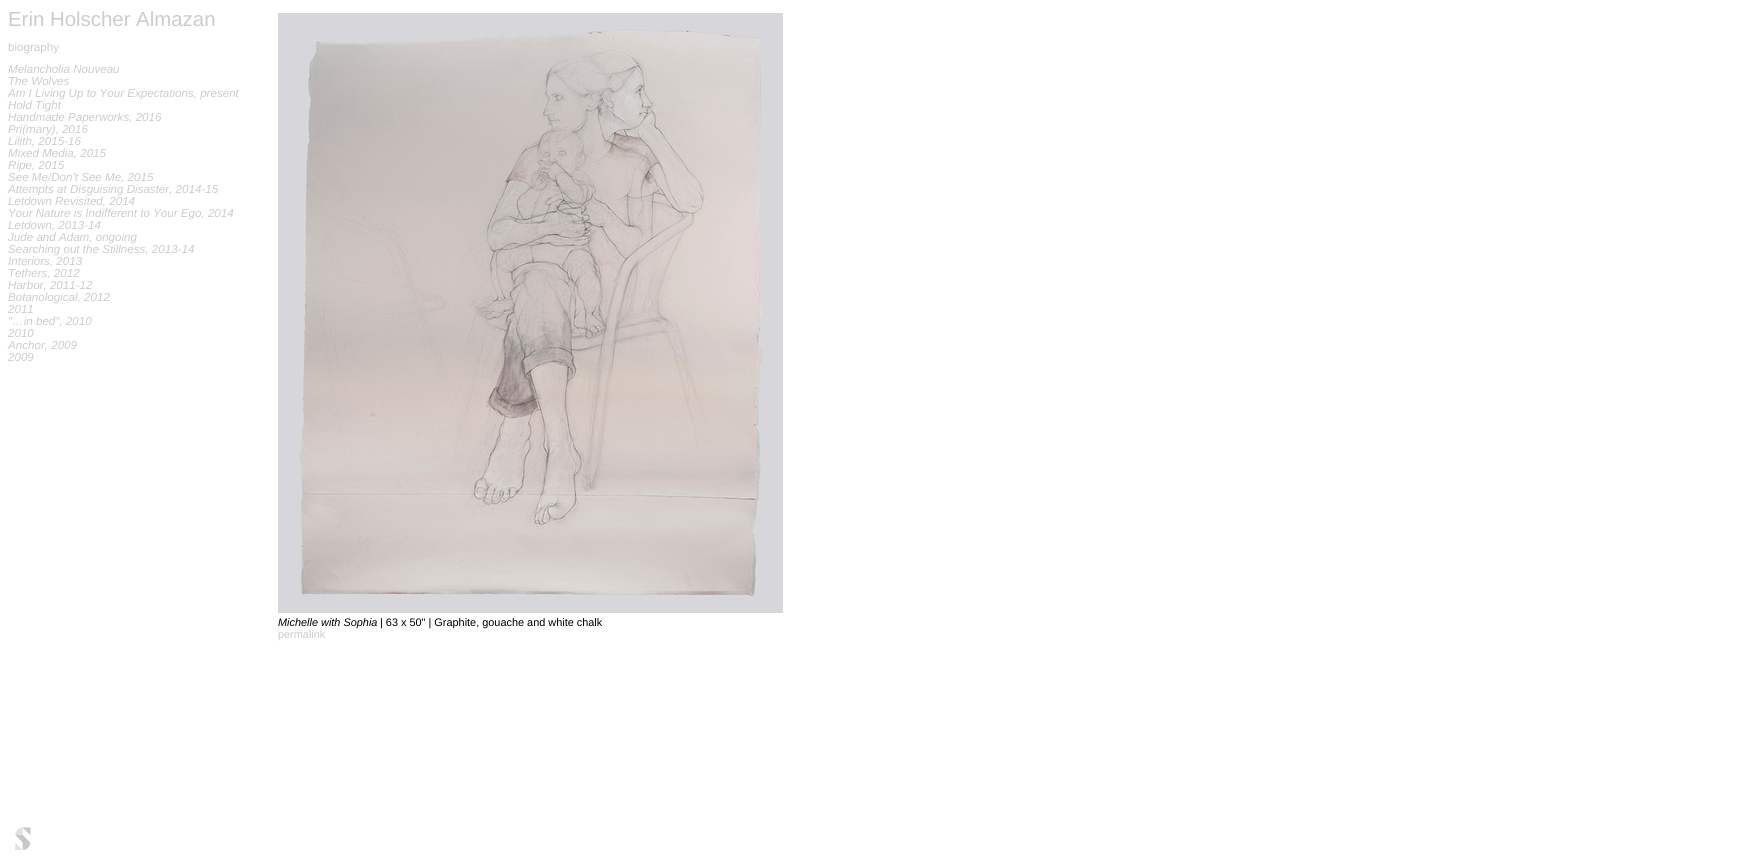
import math
import cairo



def draw_image(context, path, x, y, w, h):
    context.save()
    context.set_source_surface(cairo.ImageSurface.create_from_png(path), x, y)
    context.rectangle(x, y, w, h)
    context.fill()
    context.restore()


def draw(context):
    context.set_source_rgb(1, 1, 1)
    context.paint()
    draw_image(context, "images/1.png", 278, 13, 505, 600)
    draw_image(context, "images/2.png", 15, 827, 16, 23)
    context.select_font_face("Liberation Sans")
    context.set_font_size(20.4)
    context.set_source_rgb(204 / 255, 204 / 255, 204 / 255)
    context.move_to(8, 26)
    context.show_text("Erin Holscher Almazan")
    context.set_font_size(11.6)
    context.move_to(8, 51)
    context.show_text("biography")
    context.select_font_face("Liberation Sans", cairo.FontSlant.ITALIC)
    context.move_to(8, 73)
    context.show_text("Melancholia Nouveau")
    context.move_to(8, 85)
    context.show_text("The Wolves")
    context.move_to(8, 97)
    context.show_text("Am I Living Up to Your Expectations, present")
    context.move_to(8, 109)
    context.show_text("Hold Tight")
    context.move_to(8, 121)
    context.show_text("Handmade Paperworks, 2016")
    context.move_to(8, 133)
    context.show_text("Pri(mary), 2016")
    context.move_to(8, 145)
    context.show_text("Lilith, 2015-16")
    context.move_to(8, 157)
    context.show_text("Mixed Media, 2015")
    context.move_to(8, 169)
    context.show_text("Ripe, 2015")
    context.move_to(8, 181)
    context.show_text("See Me/Don't See Me, 2015")
    context.move_to(8, 193)
    context.show_text("Attempts at Disguising Disaster, 2014-15")
    context.move_to(8, 205)
    context.show_text("Letdown Revisited, 2014")
    context.move_to(8, 217)
    context.show_text("Your Nature is Indifferent to Your Ego, 2014")
    context.move_to(8, 229)
    context.show_text("Letdown, 2013-14")
    context.move_to(8, 241)
    context.show_text("Jude and Adam, ongoing")
    context.move_to(8, 253)
    context.show_text("Searching out the Stillness, 2013-14")
    context.move_to(8, 265)
    context.show_text("Interiors, 2013")
    context.move_to(8, 277)
    context.show_text("Tethers, 2012")
    context.move_to(8, 289)
    context.show_text("Harbor, 2011-12")
    context.move_to(8, 301)
    context.show_text("Botanological, 2012")
    context.move_to(8, 313)
    context.show_text("2011")
    context.move_to(8, 325)
    context.show_text("\"…in bed\", 2010")
    context.move_to(8, 337)
    context.show_text("2010")
    context.move_to(8, 349)
    context.show_text("Anchor, 2009")
    context.move_to(8, 361)
    context.show_text("2009")
    context.set_font_size(10.9)
    context.set_source_rgb(0, 0, 0)
    context.move_to(278, 626)
    context.show_text("Michelle with Sophia")
    context.select_font_face("Liberation Sans")
    context.move_to(380, 626)
    context.show_text("| 63 x 50\" | Graphite, gouache and white chalk")
    context.set_source_rgb(204 / 255, 204 / 255, 204 / 255)
    context.move_to(278, 638)
    context.show_text("permalink")


surface = cairo.ImageSurface(cairo.Format.RGB24, 1737, 861)
context = cairo.Context(surface)
options = cairo.FontOptions()
options.set_hint_metrics(cairo.HintMetrics.OFF)
options.set_hint_style(cairo.HintStyle.NONE)
context.set_font_options(options)
context.set_miter_limit(4)
draw(context)
surface.write_to_png("out.png")
